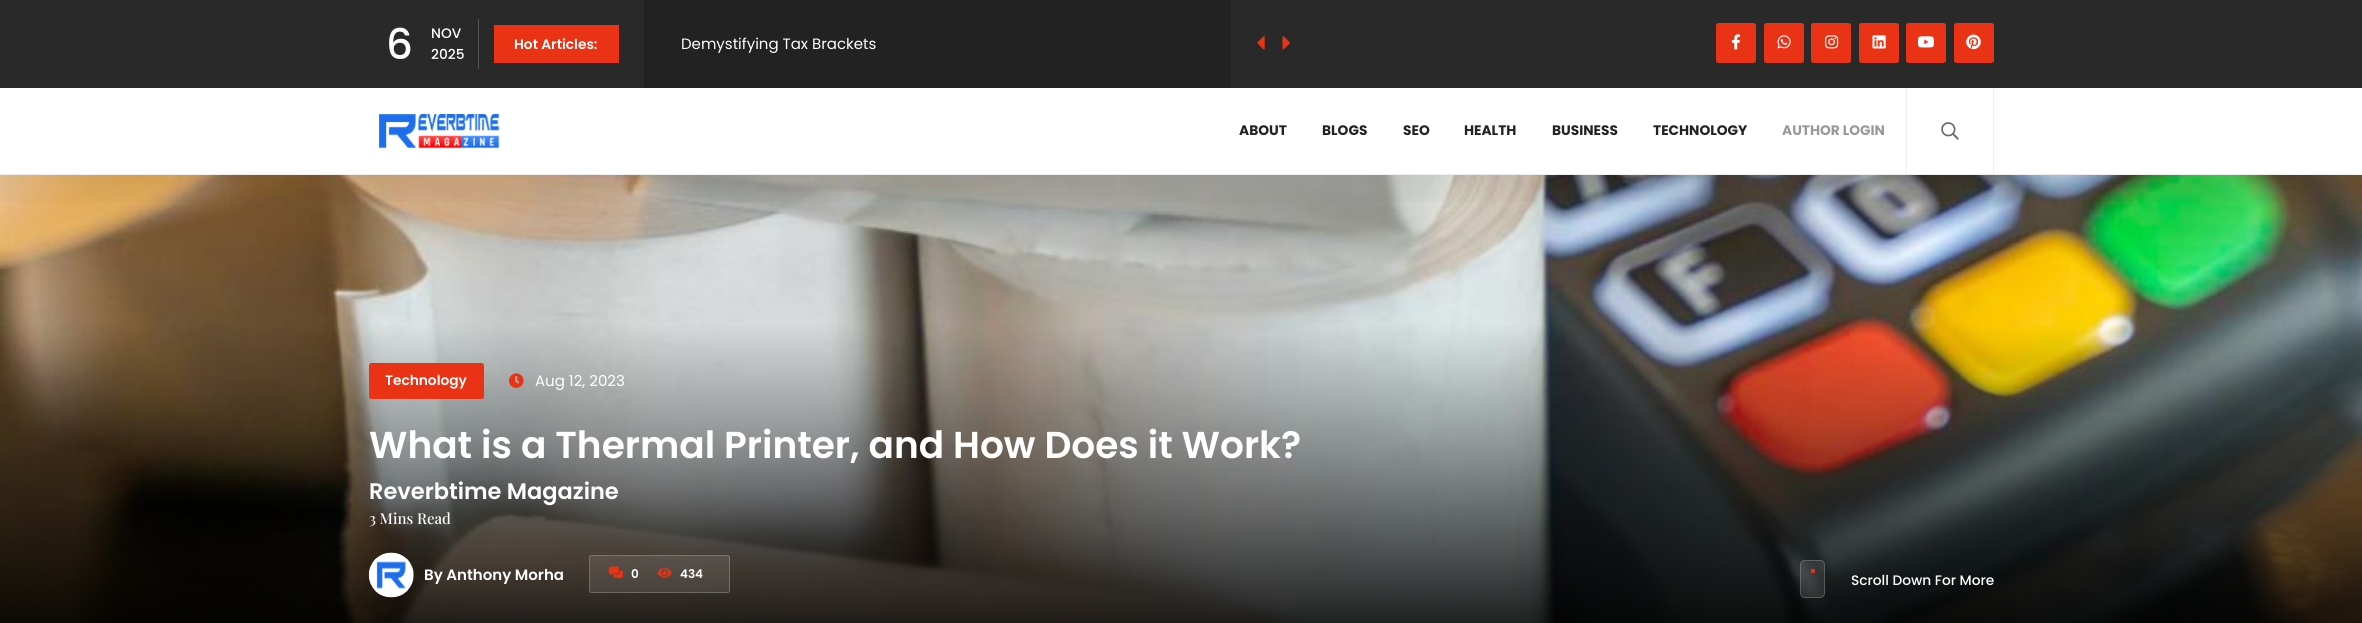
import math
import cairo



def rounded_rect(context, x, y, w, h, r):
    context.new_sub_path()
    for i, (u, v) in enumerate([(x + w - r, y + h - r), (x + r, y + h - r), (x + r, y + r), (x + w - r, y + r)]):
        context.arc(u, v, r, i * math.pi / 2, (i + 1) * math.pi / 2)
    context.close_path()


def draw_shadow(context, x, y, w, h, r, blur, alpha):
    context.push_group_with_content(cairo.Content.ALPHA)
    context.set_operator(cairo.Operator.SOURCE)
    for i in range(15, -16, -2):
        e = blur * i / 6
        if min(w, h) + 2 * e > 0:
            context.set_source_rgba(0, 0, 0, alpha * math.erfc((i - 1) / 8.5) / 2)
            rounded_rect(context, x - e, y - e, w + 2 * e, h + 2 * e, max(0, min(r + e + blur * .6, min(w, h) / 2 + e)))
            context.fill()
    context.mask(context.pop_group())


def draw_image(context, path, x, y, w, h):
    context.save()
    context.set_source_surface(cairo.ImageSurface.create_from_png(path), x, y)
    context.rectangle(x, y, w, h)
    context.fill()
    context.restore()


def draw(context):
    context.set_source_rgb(1, 1, 1)
    context.paint()
    context.set_source_rgb(41 / 255, 41 / 255, 41 / 255)
    context.rectangle(0, 0, 2362, 88)
    context.fill()
    draw_image(context, "images/11.png", 0, 175, 2362, 448)
    context.save()
    context.rectangle(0, 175, 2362, 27)
    context.clip()
    context.set_source_rgb(0, 0, 0)
    draw_shadow(context, 0, 106, 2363, 88, 0, 19, 0.06)
    context.restore()
    context.set_source_rgb(84 / 255, 84 / 255, 84 / 255)
    context.rectangle(478, 19, 1, 50)
    context.fill()
    context.set_source_rgb(34 / 255, 34 / 255, 34 / 255)
    context.rectangle(644, 0, 587, 88)
    context.fill()
    draw_image(context, "images/1.png", 1257, 36, 8, 14)
    draw_image(context, "images/2.png", 1282, 36, 8, 14)
    context.set_source_rgb(233 / 255, 51 / 255, 20 / 255)
    context.rectangle(494, 25, 125, 38)
    context.fill()
    rounded_rect(context, 1716, 23, 40, 40, 2.5)
    context.fill()
    draw_image(context, "images/3.png", 1731, 34, 9, 16)
    rounded_rect(context, 1764, 23, 40, 40, 2.5)
    context.fill()
    draw_image(context, "images/4.png", 1777, 35, 14, 14)
    rounded_rect(context, 1811, 23, 40, 40, 2.5)
    context.fill()
    draw_image(context, "images/5.png", 1825, 35, 14, 14)
    rounded_rect(context, 1859, 23, 40, 40, 2.5)
    context.fill()
    draw_image(context, "images/6.png", 1872, 35, 14, 14)
    rounded_rect(context, 1906, 23, 40, 40, 2.5)
    context.fill()
    draw_image(context, "images/7.png", 1917, 36, 17, 12)
    rounded_rect(context, 1954, 23, 40, 40, 2.5)
    context.fill()
    draw_image(context, "images/8.png", 1966, 34, 15, 16)
    context.set_source_rgb(238 / 255, 238 / 255, 238 / 255)
    context.rectangle(0, 174, 2362, 1)
    context.fill()
    draw_image(context, "images/9.png", 379, 114, 121, 35)
    context.rectangle(1993, 88, 1, 87)
    context.fill()
    context.rectangle(1906, 88, 1, 87)
    context.fill()
    draw_image(context, "images/10.png", 1941, 122, 18, 18)
    context.set_source_rgb(233 / 255, 51 / 255, 20 / 255)
    rounded_rect(context, 369, 363, 115, 36, 2.5)
    context.fill()
    draw_image(context, "images/12.png", 509, 373, 15, 15)
    draw_image(context, "images/13.png", 368, 552, 46, 46)
    context.set_source_rgba(1, 1, 1, 0.1)
    rounded_rect(context, 589, 555, 141, 38, 2.5)
    context.fill()
    rounded_rect(context, 589.5, 555.5, 140, 37, 2)
    context.set_source_rgba(1, 1, 1, 0.21)
    context.set_line_width(1)
    context.stroke()
    draw_image(context, "images/14.png", 608, 566, 15, 13)
    draw_image(context, "images/15.png", 657, 568, 15, 10)
    context.set_source_rgba(1, 1, 1, 0.1)
    rounded_rect(context, 1800, 560, 25, 38, 5)
    context.fill()
    rounded_rect(context, 1800.5, 560.5, 24, 37, 4.5)
    context.set_source_rgba(1, 1, 1, 0.2)
    context.stroke()
    context.set_source_rgb(233 / 255, 51 / 255, 20 / 255)
    rounded_rect(context, 1811, 569, 4, 4, 1)
    context.fill()
    context.select_font_face("Poppins Medium")
    context.set_font_size(42)
    context.set_source_rgb(1, 1, 1)
    context.move_to(386, 59)
    context.show_text("6")
    context.set_font_size(13.75)
    context.move_to(431, 38)
    context.show_text("NOV")
    context.move_to(431, 59)
    context.show_text("2025")
    context.select_font_face("Poppins SemiBold")
    context.move_to(514, 49)
    context.show_text("Hot Articles:")
    context.select_font_face("Poppins")
    context.set_font_size(15)
    context.move_to(681, 49)
    context.show_text("Demystifying Tax Brackets")
    context.select_font_face("Poppins", cairo.FontSlant.NORMAL, cairo.FontWeight.BOLD)
    context.set_font_size(13.75)
    context.set_source_rgb(34 / 255, 34 / 255, 34 / 255)
    context.move_to(1239, 135)
    context.show_text("ABOUT")
    context.move_to(1322, 135)
    context.show_text("BLOGS")
    context.move_to(1403, 135)
    context.show_text("SEO")
    context.move_to(1464, 135)
    context.show_text("HEALTH")
    context.move_to(1552, 135)
    context.show_text("BUSINESS")
    context.move_to(1653, 135)
    context.show_text("TECHNOLOGY")
    context.set_source_rgb(153 / 255, 153 / 255, 153 / 255)
    context.move_to(1782, 135)
    context.show_text("AUTHOR LOGIN")
    context.select_font_face("Poppins SemiBold")
    context.set_source_rgb(1, 1, 1)
    context.move_to(385, 385)
    context.show_text("Technology")
    context.select_font_face("Poppins")
    context.set_font_size(15)
    context.move_to(535, 386)
    context.show_text("Aug 12, 2023")
    context.select_font_face("Poppins SemiBold")
    context.set_font_size(37.5)
    context.move_to(369, 458)
    context.show_text("What is a Thermal Printer, and How Does it Work?")
    context.set_font_size(22.5)
    context.move_to(369, 499)
    context.show_text("Reverbtime Magazine")
    context.select_font_face("Playfair Display Medium")
    context.set_font_size(15)
    context.move_to(369, 524)
    context.show_text("3 Mins Read")
    context.select_font_face("Poppins SemiBold")
    context.move_to(424, 580)
    context.show_text("By Anthony Morha")
    context.set_font_size(12)
    context.move_to(631, 578)
    context.show_text("0")
    context.move_to(680, 578)
    context.show_text("434")
    context.select_font_face("Poppins Medium")
    context.set_font_size(13.75)
    context.move_to(1851, 585)
    context.show_text("Scroll Down For More")


surface = cairo.ImageSurface(cairo.Format.RGB24, 2362, 623)
context = cairo.Context(surface)
options = cairo.FontOptions()
options.set_hint_metrics(cairo.HintMetrics.OFF)
options.set_hint_style(cairo.HintStyle.NONE)
context.set_font_options(options)
context.set_miter_limit(4)
draw(context)
surface.write_to_png("out.png")
